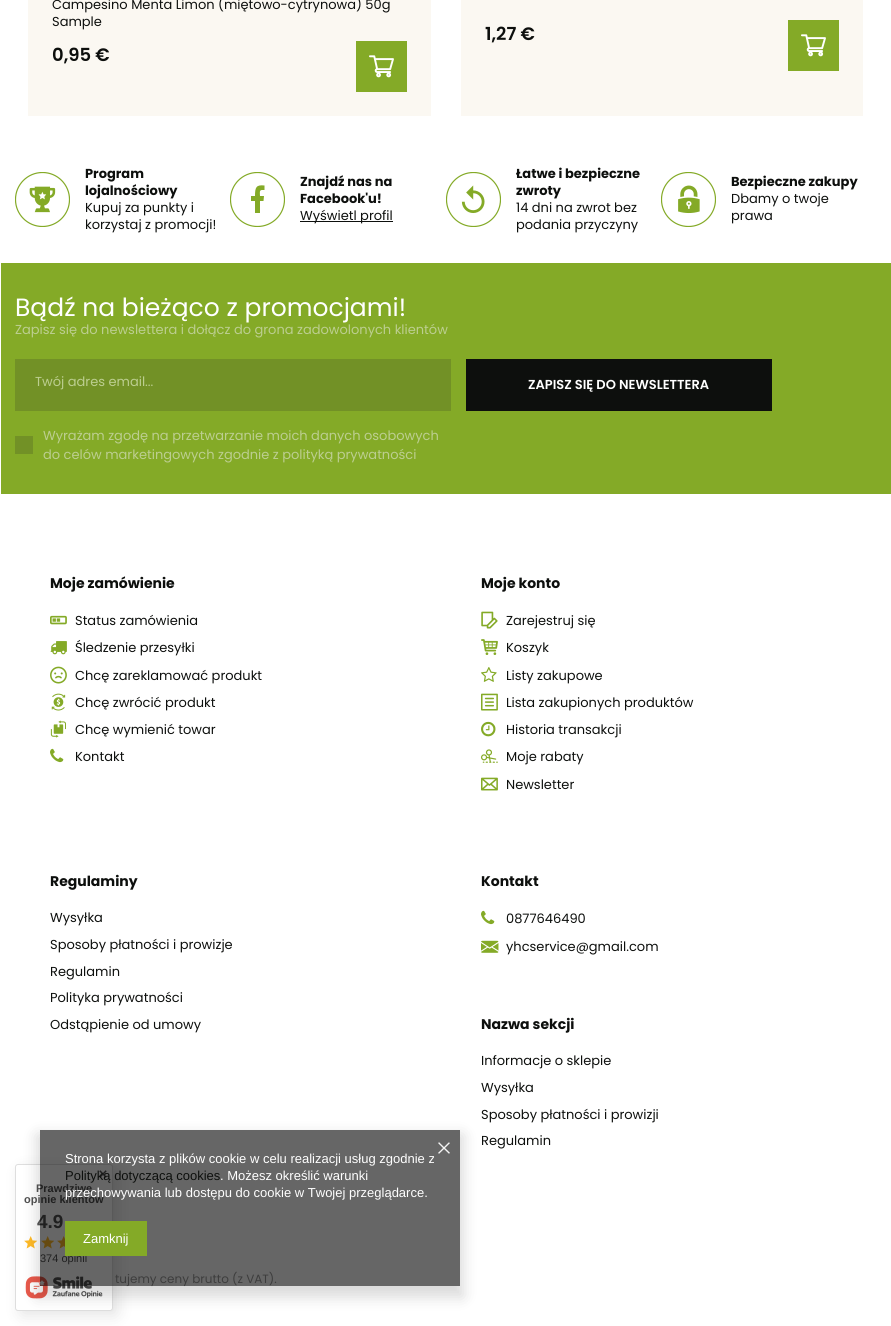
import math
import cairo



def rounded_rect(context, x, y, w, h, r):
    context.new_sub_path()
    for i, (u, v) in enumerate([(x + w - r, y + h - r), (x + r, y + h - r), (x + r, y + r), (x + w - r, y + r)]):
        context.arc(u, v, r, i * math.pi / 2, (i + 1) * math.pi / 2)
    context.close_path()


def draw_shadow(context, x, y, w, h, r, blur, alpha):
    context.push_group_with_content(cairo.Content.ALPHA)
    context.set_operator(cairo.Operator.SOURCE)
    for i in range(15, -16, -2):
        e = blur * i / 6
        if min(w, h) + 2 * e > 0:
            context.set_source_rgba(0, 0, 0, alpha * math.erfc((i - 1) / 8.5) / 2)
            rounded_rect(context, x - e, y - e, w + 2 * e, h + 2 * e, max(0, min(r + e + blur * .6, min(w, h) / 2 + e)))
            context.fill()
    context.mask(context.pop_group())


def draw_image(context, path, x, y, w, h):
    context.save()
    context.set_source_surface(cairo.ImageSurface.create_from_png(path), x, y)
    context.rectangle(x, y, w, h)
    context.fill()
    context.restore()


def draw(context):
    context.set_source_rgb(1, 1, 1)
    context.paint()
    context.set_source_rgb(251 / 255, 248 / 255, 242 / 255)
    context.rectangle(28, 0, 403, 116)
    context.fill()
    context.set_source_rgb(132 / 255, 170 / 255, 39 / 255)
    context.rectangle(356, 41, 51, 51)
    context.fill()
    draw_image(context, "images/1.png", 369, 55, 25, 23)
    context.set_source_rgb(251 / 255, 248 / 255, 242 / 255)
    context.rectangle(461, 0, 402, 116)
    context.fill()
    context.set_source_rgb(132 / 255, 170 / 255, 39 / 255)
    context.rectangle(788, 20, 51, 51)
    context.fill()
    draw_image(context, "images/1.png", 801, 34, 25, 23)
    draw_image(context, "images/2.png", 15, 172, 55, 55)
    context.save()
    context.rectangle(230, 172, 55, 55)
    context.clip()
    context.arc(257.5, 199.5, 27, 0, 2 * math.pi)
    context.set_line_width(1.2)
    context.stroke()
    context.restore()
    context.new_path()
    context.move_to(262, 190)
    context.line_to(264.5, 190)
    context.line_to(264.5, 185.5)
    context.curve_to(256, 184.5, 255, 187.5, 255, 196)
    context.line_to(251, 196)
    context.line_to(251, 201)
    context.line_to(255, 201)
    context.line_to(255, 213)
    context.line_to(260, 213)
    context.line_to(260, 201)
    context.line_to(263.5, 201)
    context.line_to(264, 196)
    context.line_to(260, 196)
    context.curve_to(260, 193.5, 259, 190, 262, 190)
    context.close_path()
    context.fill()
    context.set_source_rgb(13 / 255, 15 / 255, 13 / 255)
    context.rectangle(300, 221, 93, 1)
    context.fill()
    draw_image(context, "images/3.png", 446, 172, 55, 55)
    draw_image(context, "images/4.png", 661, 172, 55, 55)
    context.set_source_rgb(132 / 255, 170 / 255, 39 / 255)
    context.rectangle(1, 263, 890, 231)
    context.fill()
    context.set_source_rgb(114 / 255, 145 / 255, 38 / 255)
    context.rectangle(15, 359, 436, 52)
    context.fill()
    context.set_source_rgb(13 / 255, 15 / 255, 13 / 255)
    context.rectangle(466, 359, 306, 52)
    context.fill()
    context.set_source_rgb(114 / 255, 145 / 255, 38 / 255)
    context.rectangle(15, 436, 18, 18)
    context.fill()
    draw_image(context, "images/5.png", 50, 615, 17, 10)
    draw_image(context, "images/6.png", 50, 641, 17, 14)
    draw_image(context, "images/7.png", 50, 666, 17, 18)
    draw_image(context, "images/8.png", 51, 693, 15, 18)
    draw_image(context, "images/9.png", 50, 720, 16, 18)
    draw_image(context, "images/10.png", 50, 748, 14, 15)
    draw_image(context, "images/11.png", 481, 611, 17, 18)
    draw_image(context, "images/12.png", 481, 639, 17, 16)
    draw_image(context, "images/13.png", 481, 667, 16, 15)
    draw_image(context, "images/14.png", 481, 693, 17, 18)
    draw_image(context, "images/15.png", 481, 721, 15, 16)
    draw_image(context, "images/16.png", 481, 749, 17, 14)
    draw_image(context, "images/17.png", 481, 777, 17, 14)
    draw_image(context, "images/10.png", 481, 910, 14, 15)
    draw_image(context, "images/18.png", 481, 940, 18, 13)
    context.set_source_rgb(0, 0, 0)
    draw_shadow(context, 20, 1169, 98, 147, 3, 7.5, 0.1)
    context.set_source_rgb(1, 1, 1)
    rounded_rect(context, 15.5, 1164.5, 97, 146, 2.5)
    context.fill_preserve()
    context.set_source_rgb(222 / 255, 222 / 255, 222 / 255)
    context.set_line_width(1)
    context.stroke()
    draw_image(context, "images/19.png", 99, 1170, 8, 8)
    draw_image(context, "images/20.png", 24, 1236, 14, 13)
    draw_image(context, "images/21.png", 41, 1236, 13, 13)
    draw_image(context, "images/22.png", 57, 1236, 8, 13)
    draw_image(context, "images/23.png", 25, 1276, 78, 23)
    context.save()
    context.set_fill_rule(cairo.FillRule.EVEN_ODD)
    context.new_path()
    context.move_to(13, 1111)
    context.line_to(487, 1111)
    context.line_to(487, 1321)
    context.line_to(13, 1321)
    context.close_path()
    context.move_to(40, 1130)
    context.line_to(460, 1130)
    context.line_to(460, 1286)
    context.line_to(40, 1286)
    context.close_path()
    context.clip()
    context.set_source_rgb(0, 0, 0)
    draw_shadow(context, 37, 1135, 426, 162, 0, 7.5, 0.15)
    context.restore()
    context.select_font_face("Poppins")
    context.set_font_size(13)
    context.set_source_rgb(13 / 255, 15 / 255, 13 / 255)
    context.move_to(52, 9)
    context.show_text("Campesino Menta Limon (miętowo-cytrynowa) 50g")
    context.move_to(52, 26)
    context.show_text("Sample")
    context.select_font_face("Poppins SemiBold")
    context.set_font_size(18)
    context.move_to(52, 61)
    context.show_text("0,95 €")
    context.move_to(485, 40)
    context.show_text("1,27 €")
    context.select_font_face("Poppins", cairo.FontSlant.NORMAL, cairo.FontWeight.BOLD)
    context.set_font_size(13)
    context.move_to(85, 178)
    context.show_text("Program")
    context.move_to(85, 195)
    context.show_text("lojalnościowy")
    context.select_font_face("Poppins")
    context.move_to(85, 212)
    context.show_text("Kupuj za punkty i")
    context.move_to(85, 229)
    context.show_text("korzystaj z promocji!")
    context.select_font_face("Poppins", cairo.FontSlant.NORMAL, cairo.FontWeight.BOLD)
    context.move_to(300, 186)
    context.show_text("Znajdź nas na")
    context.move_to(300, 203)
    context.show_text("Facebook'u!")
    context.select_font_face("Poppins")
    context.move_to(300, 220)
    context.show_text("Wyświetl profil")
    context.select_font_face("Poppins", cairo.FontSlant.NORMAL, cairo.FontWeight.BOLD)
    context.move_to(516, 178)
    context.show_text("Łatwe i bezpieczne")
    context.move_to(516, 195)
    context.show_text("zwroty")
    context.select_font_face("Poppins")
    context.move_to(516, 212)
    context.show_text("14 dni na zwrot bez")
    context.move_to(516, 229)
    context.show_text("podania przyczyny")
    context.select_font_face("Poppins", cairo.FontSlant.NORMAL, cairo.FontWeight.BOLD)
    context.move_to(731, 186)
    context.show_text("Bezpieczne zakupy")
    context.select_font_face("Poppins")
    context.move_to(731, 203)
    context.show_text("Dbamy o twoje")
    context.move_to(731, 220)
    context.show_text("prawa")
    context.set_font_size(25)
    context.set_source_rgb(1, 1, 1)
    context.move_to(15, 316)
    context.show_text("Bądź na bieżąco z promocjami!")
    context.set_font_size(13)
    context.set_source_rgb(188 / 255, 206 / 255, 144 / 255)
    context.move_to(15, 334)
    context.show_text("Zapisz się do newslettera i dołącz do grona zadowolonych klientów")
    context.move_to(35, 386)
    context.show_text("Twój adres email...")
    context.select_font_face("Poppins SemiBold")
    context.set_source_rgb(1, 1, 1)
    context.move_to(528, 389)
    context.show_text("ZAPISZ SIĘ DO NEWSLETTERA")
    context.select_font_face("Poppins")
    context.set_source_rgb(188 / 255, 206 / 255, 144 / 255)
    context.move_to(43, 440)
    context.show_text("Wyrażam zgodę na przetwarzanie moich danych osobowych")
    context.move_to(43, 459)
    context.show_text("do celów marketingowych zgodnie z polityką prywatności")
    context.select_font_face("Poppins", cairo.FontSlant.NORMAL, cairo.FontWeight.BOLD)
    context.set_font_size(14)
    context.set_source_rgb(13 / 255, 15 / 255, 13 / 255)
    context.move_to(50, 588)
    context.show_text("Moje zamówienie")
    context.select_font_face("Poppins")
    context.set_font_size(13)
    context.move_to(75, 625)
    context.show_text("Status zamówienia")
    context.move_to(75, 652)
    context.show_text("Śledzenie przesyłki")
    context.move_to(75, 680)
    context.show_text("Chcę zareklamować produkt")
    context.move_to(75, 707)
    context.show_text("Chcę zwrócić produkt")
    context.move_to(75, 734)
    context.show_text("Chcę wymienić towar")
    context.move_to(75, 761)
    context.show_text("Kontakt")
    context.select_font_face("Poppins", cairo.FontSlant.NORMAL, cairo.FontWeight.BOLD)
    context.set_font_size(14)
    context.move_to(481, 588)
    context.show_text("Moje konto")
    context.select_font_face("Poppins")
    context.set_font_size(13)
    context.move_to(506, 625)
    context.show_text("Zarejestruj się")
    context.move_to(506, 652)
    context.show_text("Koszyk")
    context.move_to(506, 680)
    context.show_text("Listy zakupowe")
    context.move_to(506, 707)
    context.show_text("Lista zakupionych produktów")
    context.move_to(506, 734)
    context.show_text("Historia transakcji")
    context.move_to(506, 761)
    context.show_text("Moje rabaty")
    context.move_to(506, 789)
    context.show_text("Newsletter")
    context.select_font_face("Poppins", cairo.FontSlant.NORMAL, cairo.FontWeight.BOLD)
    context.set_font_size(14)
    context.move_to(50, 886)
    context.show_text("Regulaminy")
    context.select_font_face("Poppins")
    context.set_font_size(13)
    context.move_to(50, 922)
    context.show_text("Wysyłka")
    context.move_to(50, 949)
    context.show_text("Sposoby płatności i prowizje")
    context.move_to(50, 976)
    context.show_text("Regulamin")
    context.move_to(50, 1002)
    context.show_text("Polityka prywatności")
    context.move_to(50, 1029)
    context.show_text("Odstąpienie od umowy")
    context.select_font_face("Poppins", cairo.FontSlant.NORMAL, cairo.FontWeight.BOLD)
    context.set_font_size(14)
    context.move_to(481, 886)
    context.show_text("Kontakt")
    context.select_font_face("Poppins")
    context.set_font_size(13)
    context.move_to(506, 923)
    context.show_text("0877646490")
    context.move_to(506, 951)
    context.show_text("yhcservice@gmail.com")
    context.select_font_face("Poppins", cairo.FontSlant.NORMAL, cairo.FontWeight.BOLD)
    context.set_font_size(14)
    context.move_to(481, 1029)
    context.show_text("Nazwa sekcji")
    context.select_font_face("Poppins")
    context.set_font_size(13)
    context.move_to(481, 1065)
    context.show_text("Informacje o sklepie")
    context.move_to(481, 1092)
    context.show_text("Wysyłka")
    context.move_to(481, 1119)
    context.show_text("Sposoby płatności i prowizji")
    context.move_to(481, 1145)
    context.show_text("Regulamin")
    context.set_font_size(12)
    context.set_source_rgb(153 / 255, 153 / 255, 153 / 255)
    context.move_to(115, 1283)
    context.show_text("tujemy ceny brutto (z VAT).")
    context.select_font_face("Liberation Sans", cairo.FontSlant.NORMAL, cairo.FontWeight.BOLD)
    context.set_font_size(11)
    context.set_source_rgb(79 / 255, 79 / 255, 79 / 255)
    context.move_to(36, 1192)
    context.show_text("Prawdziwe")
    context.move_to(24, 1203)
    context.show_text("opinie klientów")
    context.set_font_size(19)
    context.move_to(37, 1228)
    context.show_text("4.9")
    context.select_font_face("Liberation Sans")
    context.set_font_size(11)
    context.move_to(40, 1262)
    context.show_text("374 opinii")
    context.set_source_rgba(0, 0, 0, 0.6)
    context.rectangle(40, 1130, 420, 156)
    context.fill()
    draw_image(context, "images/24.png", 438, 1142, 12, 12)
    context.set_font_size(13)
    context.set_source_rgb(1, 1, 1)
    context.move_to(65, 1163)
    context.show_text("Strona korzysta z plików cookie w celu realizacji usług zgodnie z")
    context.set_source_rgb(13 / 255, 15 / 255, 13 / 255)
    context.move_to(65, 1180)
    context.show_text("Polityką dotyczącą cookies")
    context.set_source_rgb(1, 1, 1)
    context.move_to(220, 1180)
    context.show_text(". Możesz określić warunki")
    context.move_to(65, 1197)
    context.show_text("przechowywania lub dostępu do cookie w Twojej przeglądarce.")
    context.set_source_rgb(132 / 255, 170 / 255, 39 / 255)
    context.rectangle(65, 1221, 82, 35)
    context.fill()
    context.set_source_rgb(1, 1, 1)
    context.move_to(83, 1243)
    context.show_text("Zamknij")


surface = cairo.ImageSurface(cairo.Format.RGB24, 891, 1326)
context = cairo.Context(surface)
options = cairo.FontOptions()
options.set_hint_metrics(cairo.HintMetrics.OFF)
options.set_hint_style(cairo.HintStyle.NONE)
context.set_font_options(options)
context.set_miter_limit(4)
draw(context)
surface.write_to_png("out.png")
